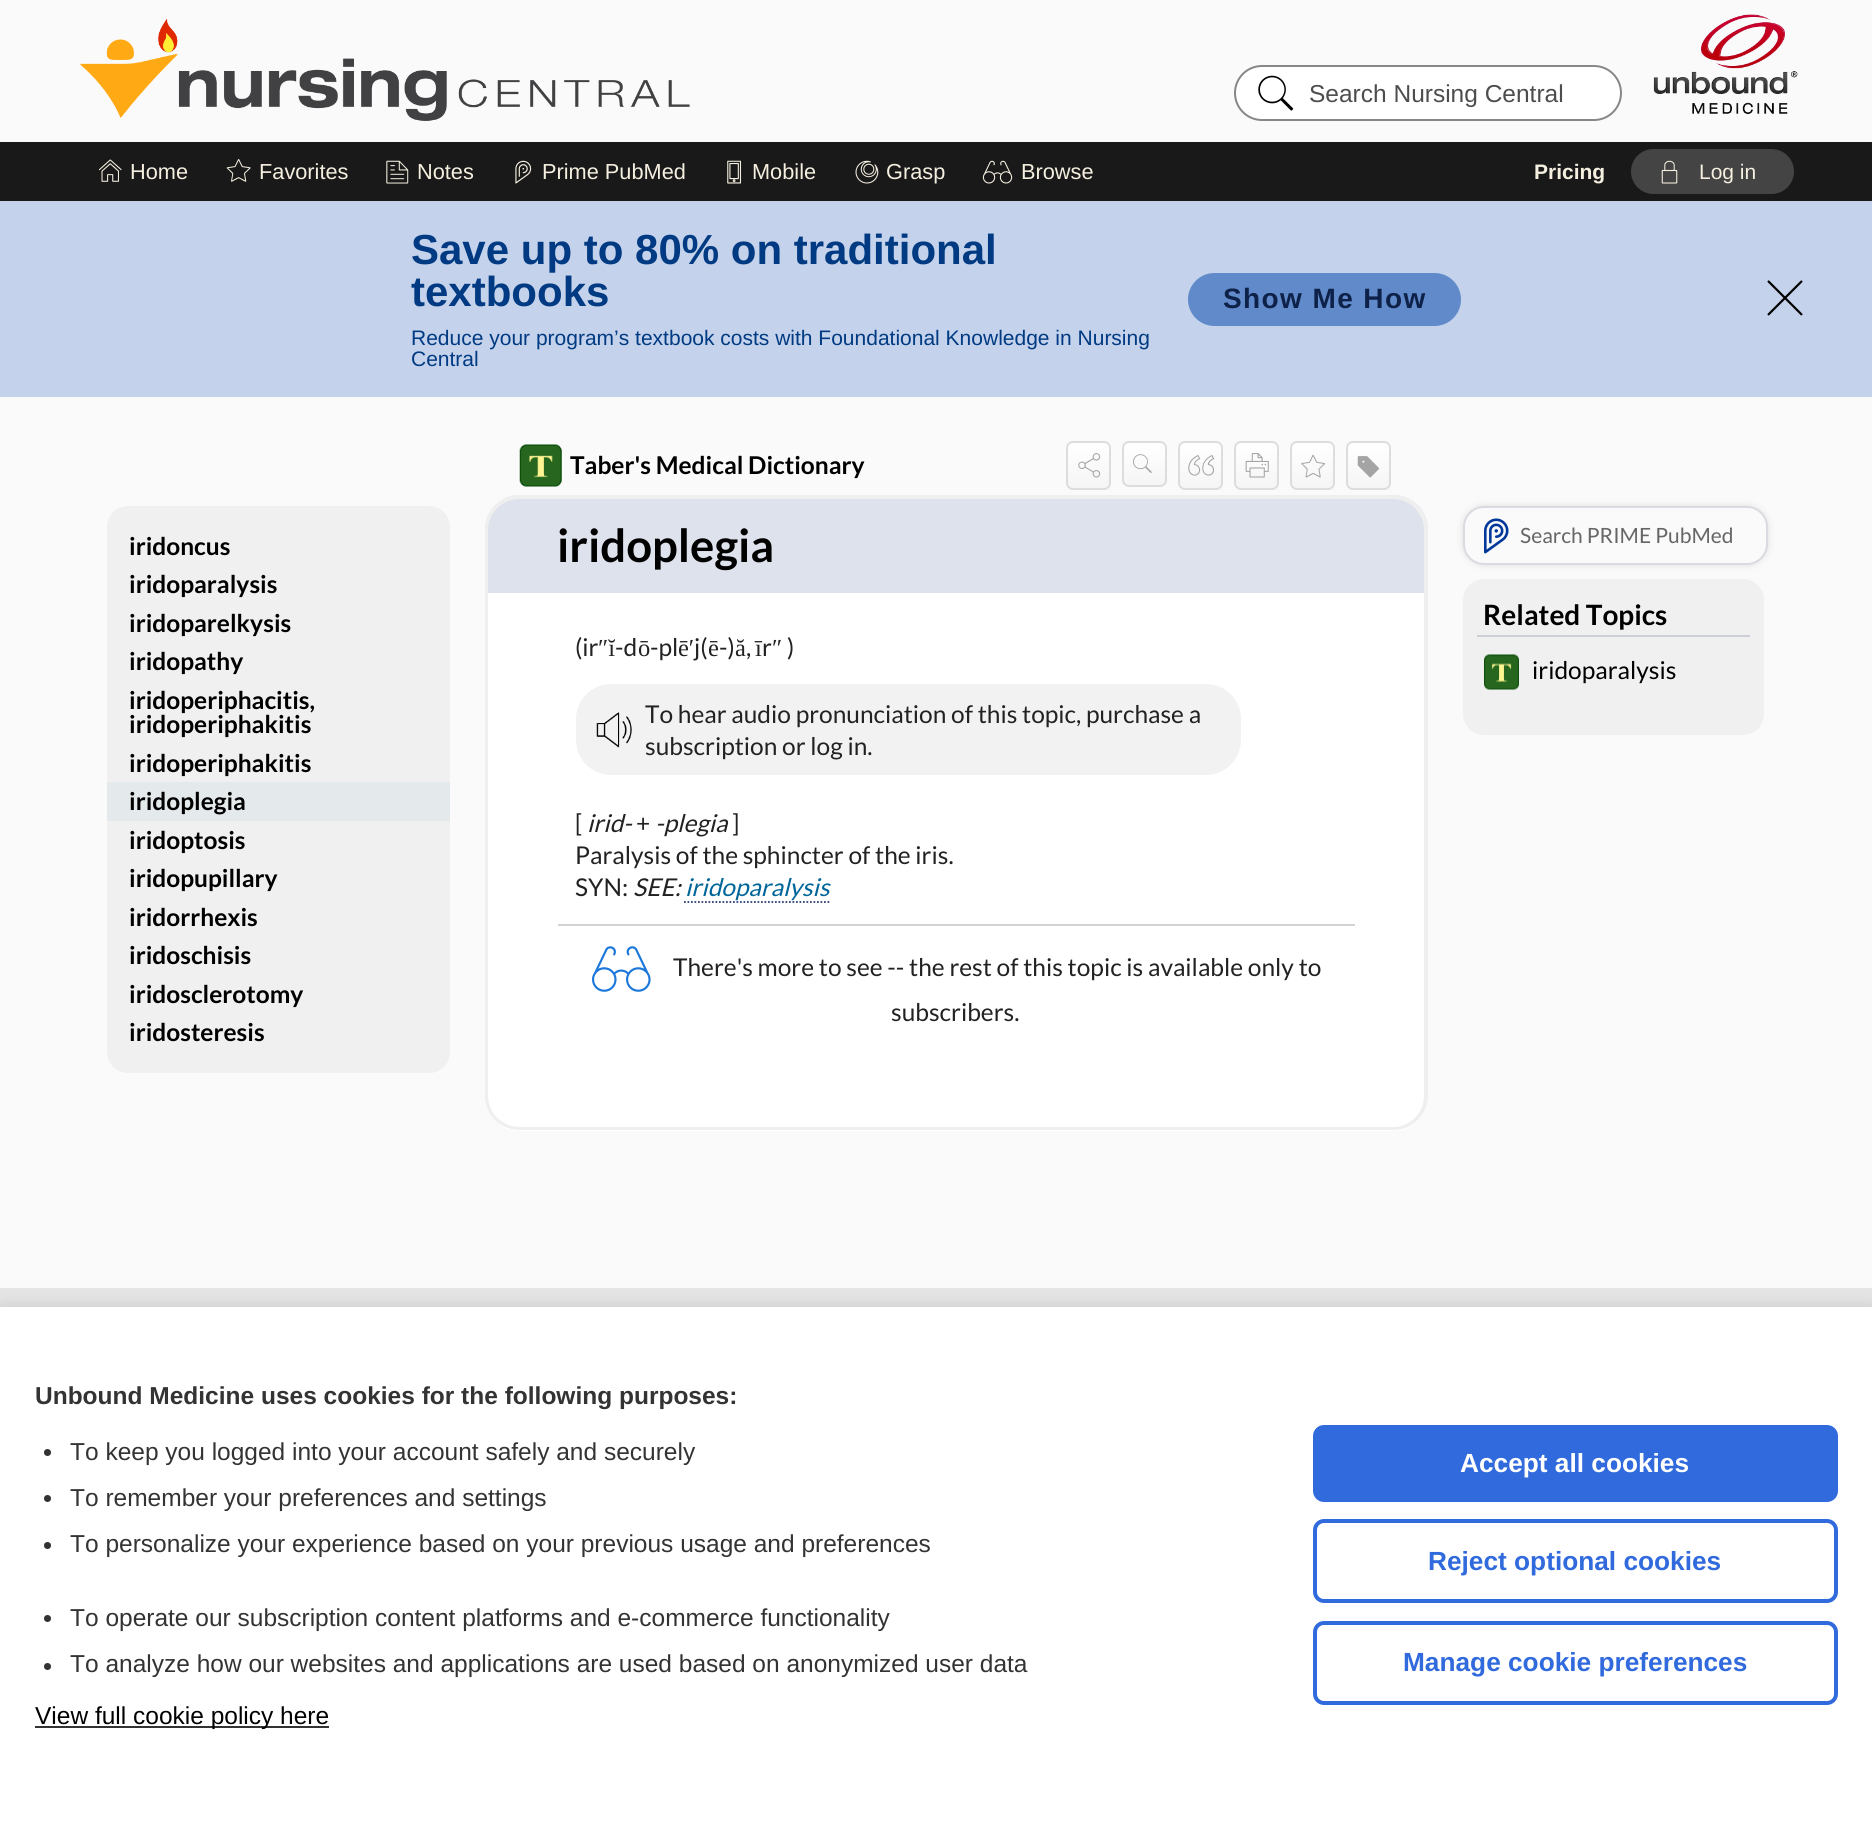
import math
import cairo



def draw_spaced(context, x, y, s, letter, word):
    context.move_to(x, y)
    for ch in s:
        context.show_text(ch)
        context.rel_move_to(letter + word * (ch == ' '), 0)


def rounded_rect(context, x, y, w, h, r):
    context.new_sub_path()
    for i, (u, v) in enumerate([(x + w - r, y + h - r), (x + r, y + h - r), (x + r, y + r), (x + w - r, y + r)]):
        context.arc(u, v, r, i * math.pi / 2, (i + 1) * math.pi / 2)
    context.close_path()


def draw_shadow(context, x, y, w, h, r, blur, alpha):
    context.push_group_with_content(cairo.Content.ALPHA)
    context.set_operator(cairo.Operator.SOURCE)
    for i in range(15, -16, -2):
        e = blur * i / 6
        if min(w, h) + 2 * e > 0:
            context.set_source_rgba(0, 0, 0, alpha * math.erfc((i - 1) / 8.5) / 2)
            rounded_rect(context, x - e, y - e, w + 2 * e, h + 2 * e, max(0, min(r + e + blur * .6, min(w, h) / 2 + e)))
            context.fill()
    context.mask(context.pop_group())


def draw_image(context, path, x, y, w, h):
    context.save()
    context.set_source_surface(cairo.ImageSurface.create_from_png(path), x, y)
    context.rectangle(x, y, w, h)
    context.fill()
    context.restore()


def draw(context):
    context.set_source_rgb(250 / 255, 250 / 255, 250 / 255)
    context.paint()
    draw_image(context, "images/1.png", 80, 19, 610, 102)
    context.set_source_rgb(1, 1, 1)
    rounded_rect(context, 1235, 66, 386, 54, 27)
    context.fill_preserve()
    context.set_source_rgb(135 / 255, 135 / 255, 135 / 255)
    context.stroke()
    draw_image(context, "images/2.png", 1258, 75, 36, 36)
    draw_image(context, "images/3.png", 1653, 14, 145, 100)
    context.set_source_rgb(25 / 255, 25 / 255, 25 / 255)
    context.rectangle(0, 142, 1872, 59)
    context.fill()
    draw_image(context, "images/4.png", 98, 159, 24, 23)
    draw_image(context, "images/5.png", 226, 159, 25, 23)
    draw_image(context, "images/6.png", 386, 160, 23, 24)
    draw_image(context, "images/7.png", 515, 160, 17, 24)
    draw_image(context, "images/8.png", 727, 160, 15, 24)
    draw_image(context, "images/9.png", 855, 160, 24, 24)
    draw_image(context, "images/10.png", 982, 160, 31, 24)
    context.set_source_rgb(68 / 255, 68 / 255, 68 / 255)
    rounded_rect(context, 1631, 149, 163, 45, 22.5)
    context.fill()
    draw_image(context, "images/11.png", 1661, 160, 17, 24)
    context.set_source_rgb(196 / 255, 210 / 255, 235 / 255)
    context.rectangle(0, 201, 1872, 196)
    context.fill()
    context.set_source_rgb(97 / 255, 138 / 255, 202 / 255)
    rounded_rect(context, 1188, 273, 273, 53, 26.5)
    context.fill()
    draw_image(context, "images/12.png", 1767, 280, 36, 36)
    context.set_source_rgb(240 / 255, 240 / 255, 240 / 255)
    rounded_rect(context, 107, 506, 343, 567, 21)
    context.fill()
    context.set_source_rgb(228 / 255, 233 / 255, 236 / 255)
    context.rectangle(107, 782, 343, 39)
    context.fill()
    draw_image(context, "images/13.png", 519, 444, 43, 43)
    context.save()
    rounded_rect(context, 1066, 441, 45, 49, 7)
    context.clip()
    gradient = cairo.LinearGradient(1089, 443, 1089, 488)
    gradient.add_color_stop_rgba(0, 1, 1, 1, 1)
    gradient.add_color_stop_rgba(1, 245 / 255, 245 / 255, 245 / 255, 1)
    context.set_source(gradient)
    context.rectangle(1066, 443, 45, 45)
    context.fill()
    context.restore()
    rounded_rect(context, 1067, 442, 43, 47, 6)
    context.set_source_rgb(219 / 255, 221 / 255, 223 / 255)
    context.stroke()
    draw_image(context, "images/14.png", 1078, 453, 23, 25)
    context.save()
    rounded_rect(context, 1122, 441, 45, 46, 7)
    context.clip()
    gradient = cairo.LinearGradient(1145, 443, 1145, 485)
    gradient.add_color_stop_rgba(0, 1, 1, 1, 1)
    gradient.add_color_stop_rgba(1, 245 / 255, 245 / 255, 245 / 255, 1)
    context.set_source(gradient)
    context.rectangle(1122, 443, 45, 42)
    context.fill()
    context.restore()
    rounded_rect(context, 1123, 442, 43, 44, 6)
    context.stroke()
    draw_image(context, "images/15.png", 1133, 454, 19, 19)
    context.save()
    rounded_rect(context, 1178, 441, 45, 49, 7)
    context.clip()
    gradient = cairo.LinearGradient(1201, 443, 1201, 488)
    gradient.add_color_stop_rgba(0, 1, 1, 1, 1)
    gradient.add_color_stop_rgba(1, 245 / 255, 245 / 255, 245 / 255, 1)
    context.set_source(gradient)
    context.rectangle(1178, 443, 45, 45)
    context.fill()
    context.restore()
    rounded_rect(context, 1179, 442, 43, 47, 6)
    context.stroke()
    draw_image(context, "images/16.png", 1188, 455, 27, 21)
    context.save()
    rounded_rect(context, 1234, 441, 45, 49, 7)
    context.clip()
    gradient = cairo.LinearGradient(1257, 443, 1257, 488)
    gradient.add_color_stop_rgba(0, 1, 1, 1, 1)
    gradient.add_color_stop_rgba(1, 245 / 255, 245 / 255, 245 / 255, 1)
    context.set_source(gradient)
    context.rectangle(1234, 443, 45, 45)
    context.fill()
    context.restore()
    rounded_rect(context, 1235, 442, 43, 47, 6)
    context.stroke()
    draw_image(context, "images/17.png", 1245, 453, 24, 25)
    context.save()
    rounded_rect(context, 1290, 441, 45, 49, 7)
    context.clip()
    gradient = cairo.LinearGradient(1313, 443, 1313, 488)
    gradient.add_color_stop_rgba(0, 1, 1, 1, 1)
    gradient.add_color_stop_rgba(1, 245 / 255, 245 / 255, 245 / 255, 1)
    context.set_source(gradient)
    context.rectangle(1290, 443, 45, 45)
    context.fill()
    context.restore()
    rounded_rect(context, 1291, 442, 43, 47, 6)
    context.stroke()
    draw_image(context, "images/18.png", 1301, 454, 24, 24)
    context.save()
    rounded_rect(context, 1346, 441, 45, 49, 7)
    context.clip()
    gradient = cairo.LinearGradient(1369, 443, 1369, 488)
    gradient.add_color_stop_rgba(0, 1, 1, 1, 1)
    gradient.add_color_stop_rgba(1, 245 / 255, 245 / 255, 245 / 255, 1)
    context.set_source(gradient)
    context.rectangle(1346, 443, 45, 45)
    context.fill()
    context.restore()
    rounded_rect(context, 1347, 442, 43, 47, 6)
    context.stroke()
    draw_image(context, "images/19.png", 1357, 456, 23, 22)
    context.set_source_rgb(222 / 255, 226 / 255, 237 / 255)
    context.new_path()
    context.move_to(520, 495)
    context.line_to(1393, 495)
    context.curve_to(1412.5, 495, 1428, 510.5, 1428, 530)
    context.line_to(1428, 593)
    context.line_to(485, 593)
    context.line_to(485, 530)
    context.curve_to(485, 510.5, 500.5, 495, 520, 495)
    context.close_path()
    context.fill()
    context.set_source_rgb(239 / 255, 239 / 255, 239 / 255)
    context.set_fill_rule(cairo.FillRule.EVEN_ODD)
    context.new_path()
    context.move_to(520, 495)
    context.line_to(1393, 495)
    context.curve_to(1412, 495, 1428, 511, 1428, 530)
    context.line_to(1428, 593)
    context.line_to(485, 593)
    context.line_to(485, 530)
    context.curve_to(485, 511, 500, 495, 520, 495)
    context.close_path()
    context.move_to(520, 499)
    context.line_to(1393, 499)
    context.curve_to(1410, 499, 1424, 513, 1424, 530)
    context.line_to(1424, 593)
    context.line_to(488, 593)
    context.line_to(488, 530)
    context.curve_to(488, 513, 502, 499, 520, 499)
    context.close_path()
    context.fill()
    context.set_source_rgb(1, 1, 1)
    context.new_path()
    context.move_to(485, 593)
    context.line_to(1428, 593)
    context.line_to(1428, 1096)
    context.curve_to(1428, 1115.5, 1412.5, 1131, 1393, 1131)
    context.line_to(520, 1131)
    context.curve_to(500.5, 1131, 485, 1115.5, 485, 1096)
    context.close_path()
    context.fill()
    context.set_source_rgb(239 / 255, 239 / 255, 239 / 255)
    context.new_path()
    context.move_to(485, 593)
    context.line_to(1428, 593)
    context.line_to(1428, 1096)
    context.curve_to(1428, 1115, 1412, 1130, 1393, 1130)
    context.line_to(520, 1130)
    context.curve_to(500, 1130, 485, 1115, 485, 1096)
    context.close_path()
    context.move_to(488, 593)
    context.line_to(1424, 593)
    context.line_to(1424, 1096)
    context.curve_to(1424, 1113, 1410, 1127, 1393, 1127)
    context.line_to(520, 1127)
    context.curve_to(502, 1127, 488, 1113, 488, 1096)
    context.close_path()
    context.fill()
    context.set_source_rgb(242 / 255, 242 / 255, 242 / 255)
    rounded_rect(context, 576, 684, 665, 91, 35)
    context.fill()
    draw_image(context, "images/20.png", 596, 712, 36, 36)
    context.new_path()
    context.move_to(684, 902)
    context.line_to(829.5, 902)
    context.set_source_rgb(45 / 255, 62 / 255, 117 / 255)
    context.set_line_width(1.8)
    context.set_dash([1.75, 1.75])
    context.stroke()
    context.set_source_rgb(211 / 255, 211 / 255, 211 / 255)
    context.rectangle(558, 924, 797, 2)
    context.fill()
    draw_image(context, "images/21.png", 591, 946, 60, 46)
    context.set_source_rgb(221 / 255, 221 / 255, 221 / 255)
    draw_shadow(context, 1463, 506, 305, 59, 21, 3.5, 1)
    context.set_source_rgb(250 / 255, 250 / 255, 250 / 255)
    rounded_rect(context, 1464, 507, 303, 57, 20)
    context.fill_preserve()
    context.set_source_rgb(217 / 255, 219 / 255, 224 / 255)
    context.set_line_width(2)
    context.set_dash([])
    context.stroke()
    draw_image(context, "images/22.png", 1484, 518, 25, 36)
    context.set_source_rgb(240 / 255, 240 / 255, 240 / 255)
    rounded_rect(context, 1463, 579, 301, 156, 21)
    context.fill()
    context.set_source_rgb(204 / 255, 207 / 255, 211 / 255)
    context.rectangle(1477, 635, 273, 2)
    context.fill()
    draw_image(context, "images/23.png", 1484, 654, 35, 36)
    context.set_source_rgb(230 / 255, 230 / 255, 230 / 255)
    context.rectangle(0, 1288, 1872, 19)
    context.fill()
    context.set_source_rgb(0, 0, 0)
    draw_shadow(context, 0, 1304, 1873, 514, 0, 9, 0.1)
    context.set_source_rgb(1, 1, 1)
    context.rectangle(0, 1307, 1872, 514)
    context.fill()
    context.set_source_rgb(51 / 255, 51 / 255, 51 / 255)
    context.arc(47.5, 1452.5, 3.5, 0, 2 * math.pi)
    context.fill()
    context.arc(47.5, 1498.5, 3.5, 0, 2 * math.pi)
    context.fill()
    context.arc(47.5, 1545.5, 3.5, 0, 2 * math.pi)
    context.fill()
    context.arc(47.5, 1618.5, 3.5, 0, 2 * math.pi)
    context.fill()
    context.arc(47.5, 1666.5, 3.5, 0, 2 * math.pi)
    context.fill()
    context.rectangle(35, 1726, 294, 2)
    context.fill()
    context.set_source_rgb(48 / 255, 106 / 255, 220 / 255)
    rounded_rect(context, 1313, 1425, 525, 77, 11)
    context.fill()
    rounded_rect(context, 1315, 1521, 521, 80, 9)
    context.set_line_width(4)
    context.stroke()
    rounded_rect(context, 1315, 1623, 521, 80, 9)
    context.stroke()
    context.select_font_face("Liberation Sans")
    context.set_font_size(24.5)
    context.set_source_rgb(77 / 255, 77 / 255, 77 / 255)
    context.move_to(1309, 102)
    context.show_text("Search Nursing Central")
    context.set_font_size(21.75)
    context.set_source_rgb(245 / 255, 239 / 255, 224 / 255)
    context.move_to(130, 179)
    context.show_text("Home")
    context.move_to(259, 179)
    context.show_text("Favorites")
    context.move_to(417, 179)
    context.show_text("Notes")
    context.move_to(542, 179)
    context.show_text("Prime PubMed")
    context.move_to(752, 179)
    context.show_text("Mobile")
    context.move_to(886, 179)
    context.show_text("Grasp")
    context.move_to(1021, 179)
    context.show_text("Browse")
    context.select_font_face("Liberation Sans", cairo.FontSlant.NORMAL, cairo.FontWeight.BOLD)
    context.set_font_size(21)
    context.move_to(1534, 179)
    context.show_text("Pricing")
    context.select_font_face("Liberation Sans")
    context.move_to(1699, 179)
    context.show_text("Log in")
    context.select_font_face("Liberation Sans", cairo.FontSlant.NORMAL, cairo.FontWeight.BOLD)
    context.set_font_size(42)
    context.set_source_rgb(0, 58 / 255, 130 / 255)
    context.move_to(411, 264)
    context.show_text("Save up to 80% on traditional")
    context.move_to(411, 306)
    context.show_text("textbooks")
    context.select_font_face("Liberation Sans")
    context.set_font_size(21)
    context.move_to(411, 345)
    context.show_text("Reduce your program’s textbook costs with Foundational Knowledge in Nursing")
    context.move_to(411, 366)
    context.show_text("Central")
    context.select_font_face("Liberation Sans", cairo.FontSlant.NORMAL, cairo.FontWeight.BOLD)
    context.set_font_size(28)
    context.set_source_rgb(14 / 255, 33 / 255, 72 / 255)
    draw_spaced(context, 1223, 308, "Show Me How", 1.4, 0)
    context.select_font_face("Lato", cairo.FontSlant.NORMAL, cairo.FontWeight.BOLD)
    context.set_font_size(24.5)
    context.set_source_rgb(0, 0, 0)
    context.move_to(129, 555)
    context.show_text("iridoncus")
    context.move_to(129, 593)
    context.show_text("iridoparalysis")
    context.move_to(129, 632)
    context.show_text("iridoparelkysis")
    context.move_to(129, 670)
    context.show_text("iridopathy")
    context.move_to(129, 709)
    context.show_text("iridoperiphacitis,")
    context.move_to(129, 733)
    context.show_text("iridoperiphakitis")
    context.move_to(129, 772)
    context.show_text("iridoperiphakitis")
    context.move_to(129, 810)
    context.show_text("iridoplegia")
    context.move_to(129, 849)
    context.show_text("iridoptosis")
    context.move_to(129, 887)
    context.show_text("iridopupillary")
    context.move_to(129, 926)
    context.show_text("iridorrhexis")
    context.move_to(129, 964)
    context.show_text("iridoschisis")
    context.move_to(129, 1003)
    context.show_text("iridosclerotomy")
    context.move_to(129, 1041)
    context.show_text("iridosteresis")
    context.move_to(570, 474)
    context.show_text("Taber's Medical Dictionary")
    context.set_font_size(45.5)
    context.move_to(557, 562)
    context.show_text("iridoplegia")
    context.select_font_face("Lato")
    context.set_font_size(24.5)
    context.set_source_rgb(34 / 255, 34 / 255, 34 / 255)
    context.move_to(575, 656)
    context.show_text("(ir")
    context.select_font_face("Liberation Serif")
    context.move_to(598, 656)
    context.show_text("″ĭ")
    context.select_font_face("Lato")
    context.move_to(615, 656)
    context.show_text("-d")
    context.select_font_face("Liberation Serif")
    context.move_to(638, 656)
    context.show_text("ō")
    context.select_font_face("Lato")
    context.move_to(650, 656)
    context.show_text("-pl")
    context.select_font_face("Liberation Serif")
    context.move_to(678, 656)
    context.show_text("ē′")
    context.select_font_face("Lato")
    context.move_to(694, 656)
    context.show_text("j(")
    context.select_font_face("Liberation Serif")
    context.move_to(708, 656)
    context.show_text("ē")
    context.select_font_face("Lato")
    context.move_to(719, 656)
    context.show_text("-)")
    context.select_font_face("Liberation Serif")
    context.move_to(735, 656)
    context.show_text("ă")
    context.select_font_face("Lato")
    context.move_to(746, 656)
    context.show_text(",")
    context.select_font_face("Liberation Serif")
    context.move_to(755, 656)
    context.show_text("ī")
    context.select_font_face("Lato")
    context.move_to(762, 656)
    context.show_text("r")
    context.select_font_face("Liberation Serif")
    context.move_to(772, 656)
    context.show_text("″")
    context.select_font_face("Lato")
    context.move_to(787, 656)
    context.show_text(")")
    context.move_to(645, 723)
    context.show_text("To hear audio pronunciation of this topic, purchase a")
    context.move_to(645, 755)
    context.show_text("subscription or log in.")
    context.move_to(575, 832)
    context.show_text("[")
    context.select_font_face("Lato", cairo.FontSlant.ITALIC)
    context.move_to(587, 832)
    context.show_text("irid-")
    context.select_font_face("Lato")
    context.move_to(636, 832)
    context.show_text("+")
    context.select_font_face("Lato", cairo.FontSlant.ITALIC)
    context.move_to(655, 832)
    context.show_text("-plegia")
    context.select_font_face("Lato")
    context.move_to(732, 832)
    context.show_text("]")
    context.move_to(575, 864)
    context.show_text("Paralysis of the sphincter of the iris.")
    context.move_to(575, 896)
    context.show_text("SYN:")
    context.select_font_face("Lato", cairo.FontSlant.ITALIC)
    context.move_to(633, 896)
    context.show_text("SEE:")
    context.set_source_rgb(0, 102 / 255, 153 / 255)
    context.move_to(685, 896)
    context.show_text("iridoparalysis")
    context.select_font_face("Lato")
    context.set_source_rgb(34 / 255, 34 / 255, 34 / 255)
    context.move_to(673, 976)
    context.show_text("There's more to see -- the rest of this topic is available only to")
    context.move_to(891, 1021)
    context.show_text("subscribers.")
    context.set_font_size(21)
    context.set_source_rgb(102 / 255, 102 / 255, 102 / 255)
    context.move_to(1520, 543)
    context.show_text("Search PRIME PubMed")
    context.select_font_face("Lato", cairo.FontSlant.NORMAL, cairo.FontWeight.BOLD)
    context.set_font_size(28)
    context.set_source_rgb(0, 0, 0)
    context.move_to(1483, 625)
    context.show_text("Related Topics")
    context.select_font_face("Lato")
    context.set_font_size(24.5)
    context.move_to(1532, 679)
    context.show_text("iridoparalysis")
    context.select_font_face("Liberation Sans", cairo.FontSlant.NORMAL, cairo.FontWeight.BOLD)
    context.set_source_rgb(51 / 255, 51 / 255, 51 / 255)
    context.move_to(35, 1404)
    context.show_text("Unbound Medicine uses cookies for the following purposes:")
    context.select_font_face("Liberation Sans")
    context.move_to(70, 1460)
    context.show_text("To keep you logged into your account safely and securely")
    context.move_to(70, 1506)
    context.show_text("To remember your preferences and settings")
    context.move_to(70, 1552)
    context.show_text("To personalize your experience based on your previous usage and preferences")
    context.move_to(70, 1626)
    context.show_text("To operate our subscription content platforms and e-commerce functionality")
    context.move_to(70, 1672)
    context.show_text("To analyze how our websites and applications are used based on anonymized user data")
    context.set_source_rgb(0, 0, 0)
    context.move_to(35, 1724)
    context.show_text("View full cookie policy here")
    context.select_font_face("Liberation Sans", cairo.FontSlant.NORMAL, cairo.FontWeight.BOLD)
    context.set_font_size(26.25)
    context.set_source_rgb(1, 1, 1)
    context.move_to(1460, 1472)
    context.show_text("Accept all cookies")
    context.set_source_rgb(48 / 255, 106 / 255, 220 / 255)
    context.move_to(1428, 1570)
    context.show_text("Reject optional cookies")
    context.move_to(1403, 1671)
    context.show_text("Manage cookie preferences")


surface = cairo.ImageSurface(cairo.Format.RGB24, 1872, 1821)
context = cairo.Context(surface)
options = cairo.FontOptions()
options.set_hint_metrics(cairo.HintMetrics.OFF)
options.set_hint_style(cairo.HintStyle.NONE)
context.set_font_options(options)
context.set_miter_limit(4)
draw(context)
surface.write_to_png("out.png")
